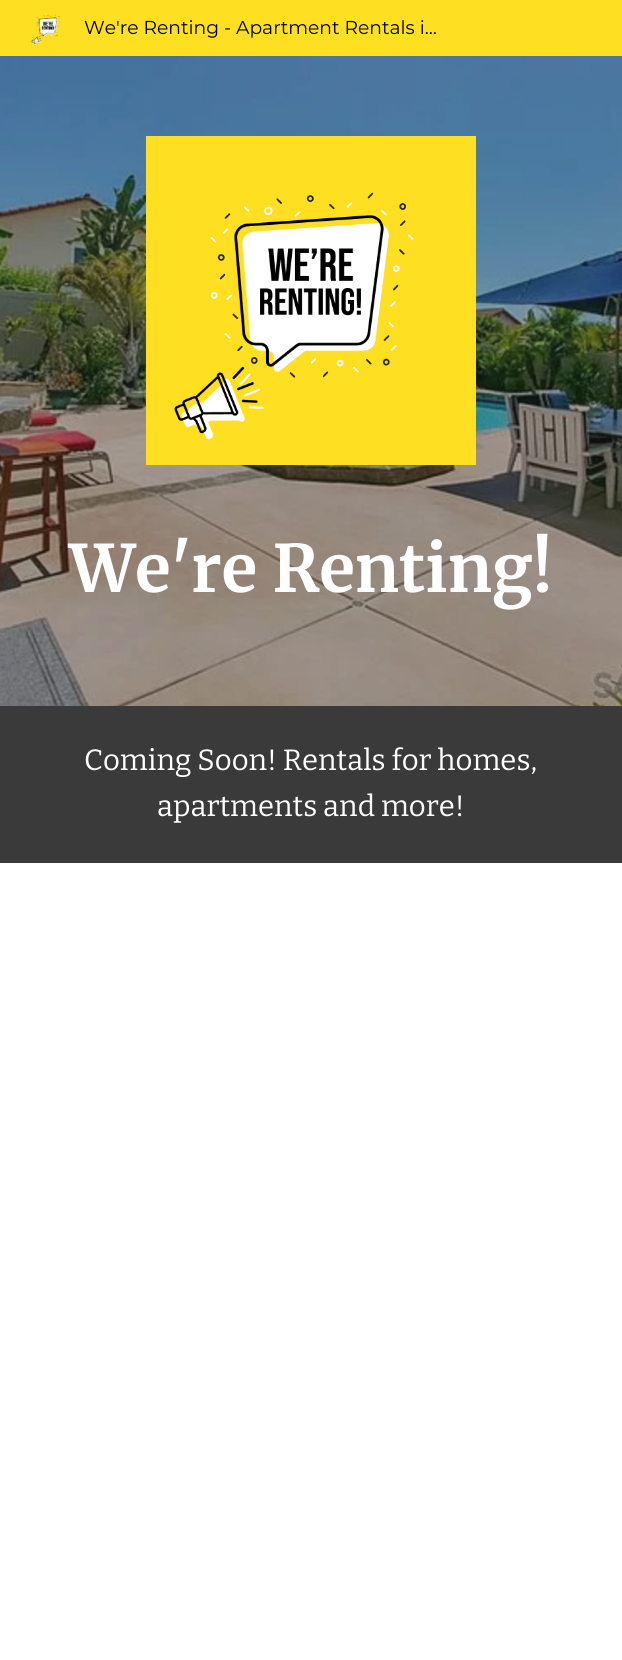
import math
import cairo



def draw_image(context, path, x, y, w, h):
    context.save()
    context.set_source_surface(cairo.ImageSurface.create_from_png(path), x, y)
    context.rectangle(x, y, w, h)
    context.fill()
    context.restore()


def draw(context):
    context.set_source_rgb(1, 1, 1)
    context.paint()
    context.set_source_rgb(1, 223 / 255, 34 / 255)
    context.rectangle(0, 0, 622, 56)
    context.fill()
    draw_image(context, "images/1.png", 31, 14, 30, 31)
    draw_image(context, "images/2.png", 0, 56, 622, 650)
    draw_image(context, "images/3.png", 146, 136, 330, 329)
    context.set_source_rgb(58 / 255, 58 / 255, 58 / 255)
    context.rectangle(0, 706, 622, 157)
    context.fill()
    context.select_font_face("Montserrat")
    context.set_font_size(18.7)
    context.set_source_rgb(0, 0, 0)
    context.move_to(84, 34)
    context.show_text("We're Renting - Apartment Rentals i…")
    context.select_font_face("Merriweather", cairo.FontSlant.NORMAL, cairo.FontWeight.BOLD)
    context.set_font_size(65.25)
    context.set_source_rgb(1, 1, 1)
    context.move_to(69, 592)
    context.show_text("We're Renting!")
    context.select_font_face("Bitter")
    context.set_font_size(29.3)
    context.move_to(84, 770)
    context.show_text("Coming Soon! Rentals for homes,")
    context.move_to(157, 816)
    context.show_text("apartments and more!")


surface = cairo.ImageSurface(cairo.Format.RGB24, 622, 1660)
context = cairo.Context(surface)
options = cairo.FontOptions()
options.set_hint_metrics(cairo.HintMetrics.OFF)
options.set_hint_style(cairo.HintStyle.NONE)
context.set_font_options(options)
context.set_miter_limit(4)
draw(context)
surface.write_to_png("out.png")
